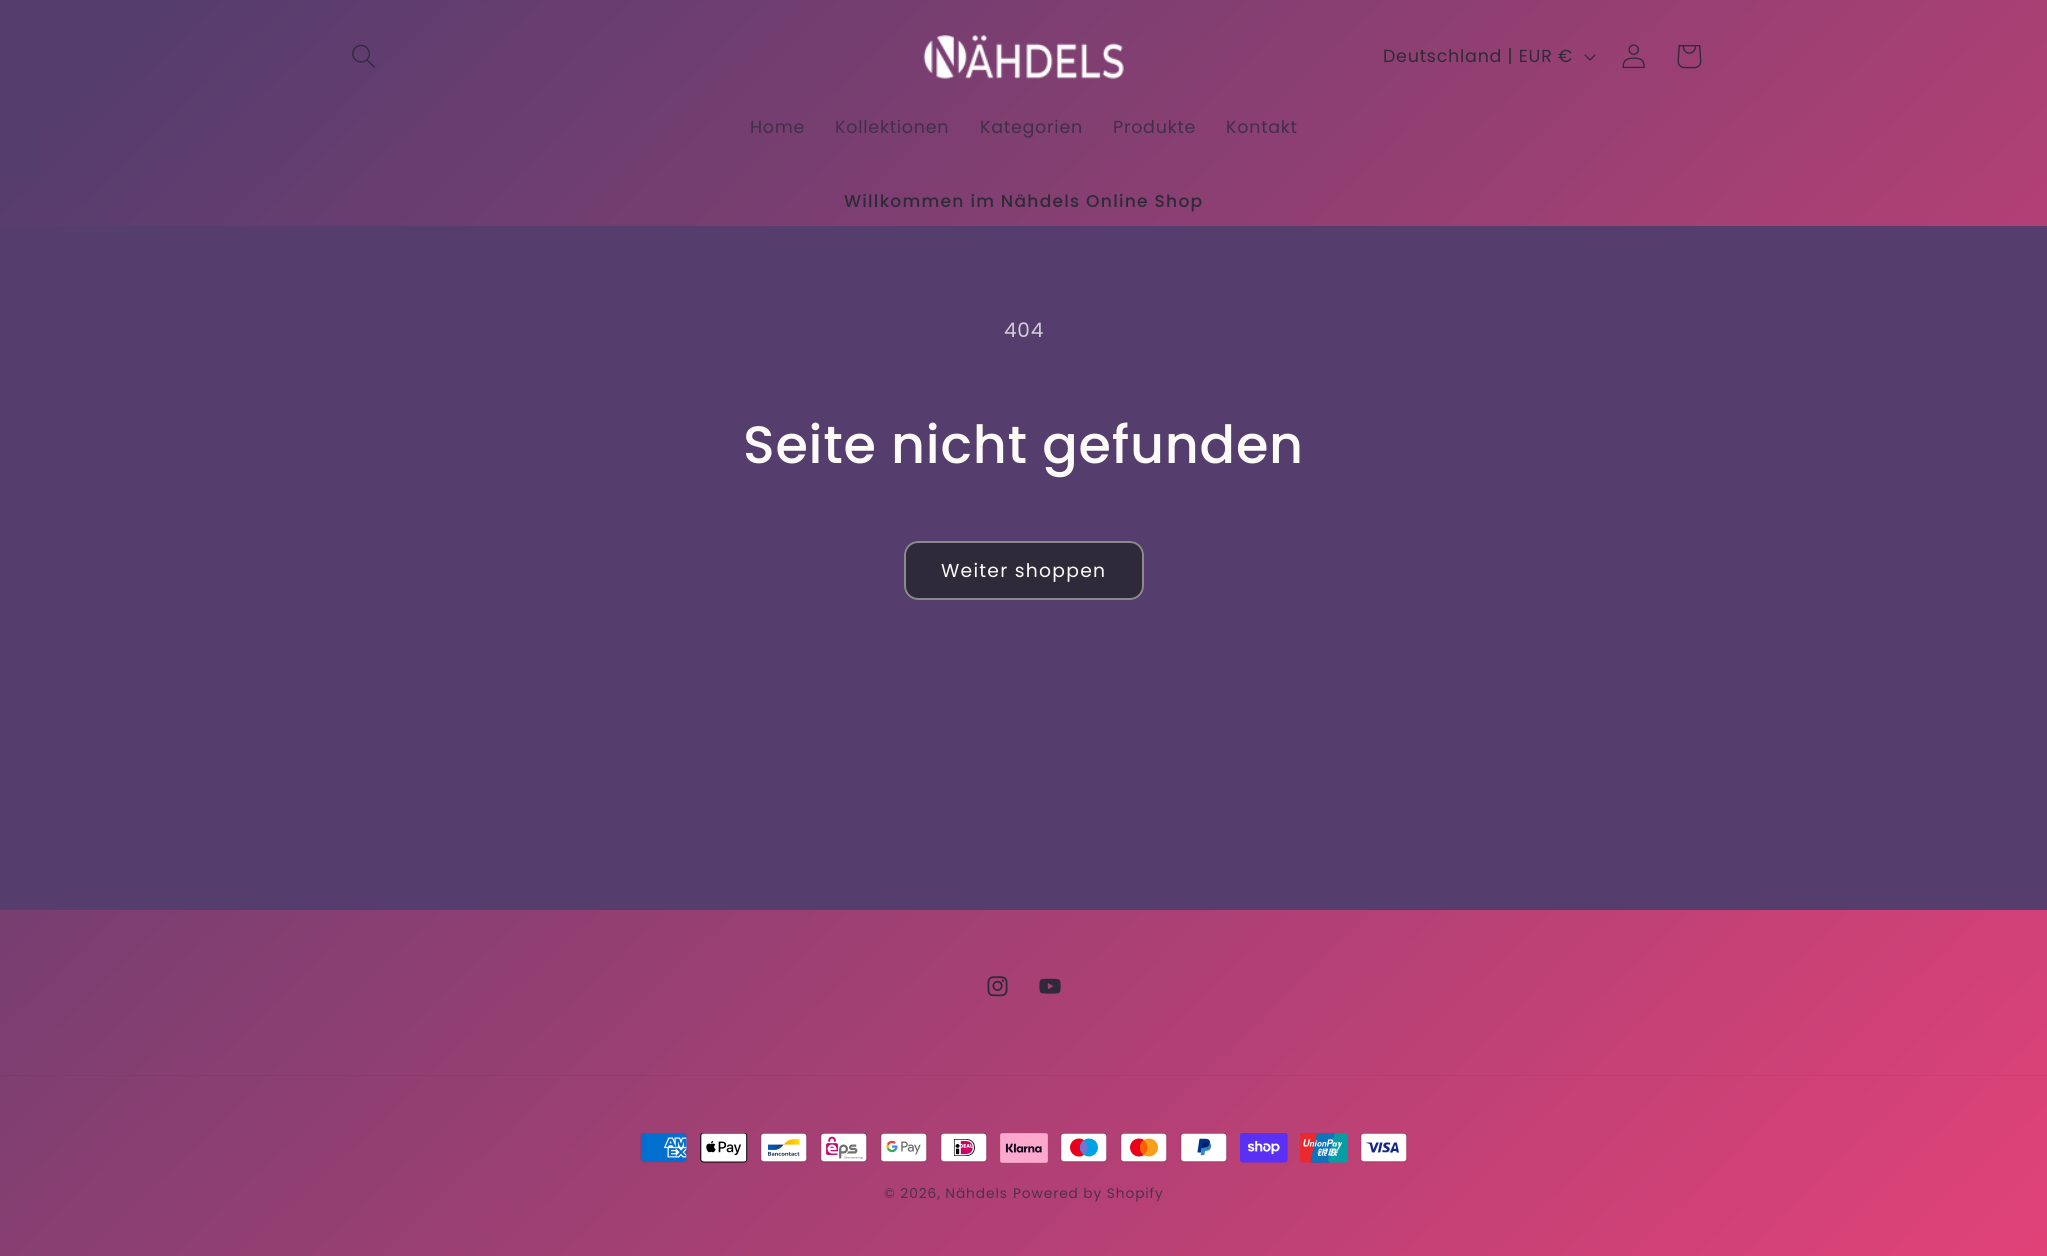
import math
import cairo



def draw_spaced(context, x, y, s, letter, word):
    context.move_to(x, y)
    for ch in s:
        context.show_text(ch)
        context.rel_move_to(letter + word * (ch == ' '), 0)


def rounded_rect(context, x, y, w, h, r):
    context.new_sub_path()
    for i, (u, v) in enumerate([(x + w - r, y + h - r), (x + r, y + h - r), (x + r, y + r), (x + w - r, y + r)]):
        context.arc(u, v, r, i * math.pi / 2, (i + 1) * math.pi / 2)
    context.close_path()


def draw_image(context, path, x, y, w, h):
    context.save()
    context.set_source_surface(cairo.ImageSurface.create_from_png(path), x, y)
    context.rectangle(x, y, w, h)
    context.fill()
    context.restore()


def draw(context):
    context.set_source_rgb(85 / 255, 61 / 255, 110 / 255)
    context.paint()
    gradient = cairo.LinearGradient(216, -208, 1832, 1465)
    gradient.add_color_stop_rgba(0.05, 85 / 255, 61 / 255, 110 / 255, 1)
    gradient.add_color_stop_rgba(1, 225 / 255, 66 / 255, 120 / 255, 1)
    context.set_source(gradient)
    context.rectangle(40, 0, 2007, 179)
    context.fill()
    draw_image(context, "images/1.png", 352, 44, 23, 24)
    draw_image(context, "images/2.png", 923, 35, 201, 44)
    draw_image(context, "images/3.png", 1584, 54, 12, 7)
    draw_image(context, "images/4.png", 1622, 44, 23, 25)
    draw_image(context, "images/5.png", 1677, 45, 25, 24)
    context.rectangle(0, 179, 2047, 47)
    context.fill()
    context.set_source_rgb(46 / 255, 42 / 255, 57 / 255)
    rounded_rect(context, 904, 541, 240, 59, 14)
    context.fill()
    rounded_rect(context, 904.5, 541.5, 239, 58, 13.5)
    context.set_line_width(1)
    context.stroke()
    rounded_rect(context, 905, 542, 238, 57, 13)
    context.set_source_rgba(253 / 255, 251 / 255, 247 / 255, 0.45)
    context.set_line_width(2)
    context.stroke()
    gradient = cairo.LinearGradient(216, -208, 1832, 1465)
    gradient.add_color_stop_rgba(0.05, 85 / 255, 61 / 255, 110 / 255, 1)
    gradient.add_color_stop_rgba(1, 225 / 255, 66 / 255, 120 / 255, 1)
    context.set_source(gradient)
    context.rectangle(0, 910, 2047, 346)
    context.fill()
    gradient = cairo.LinearGradient(216, -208, 1832, 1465)
    gradient.add_color_stop_rgba(0.05, 82 / 255, 59 / 255, 106 / 255, 1)
    gradient.add_color_stop_rgba(1, 211 / 255, 64 / 255, 115 / 255, 1)
    context.set_source(gradient)
    context.rectangle(0, 1075, 2047, 1)
    context.fill()
    draw_image(context, "images/6.png", 987, 976, 21, 21)
    draw_image(context, "images/7.png", 1039, 978, 22, 16)
    draw_image(context, "images/8.png", 640, 1133, 48, 30)
    draw_image(context, "images/9.png", 700, 1133, 48, 30)
    draw_image(context, "images/10.png", 760, 1133, 48, 30)
    draw_image(context, "images/11.png", 820, 1133, 48, 30)
    draw_image(context, "images/12.png", 880, 1133, 48, 30)
    draw_image(context, "images/13.png", 940, 1133, 48, 30)
    draw_image(context, "images/14.png", 1000, 1133, 48, 30)
    draw_image(context, "images/15.png", 1060, 1133, 48, 30)
    draw_image(context, "images/16.png", 1120, 1133, 48, 30)
    draw_image(context, "images/17.png", 1180, 1133, 48, 30)
    draw_image(context, "images/18.png", 1240, 1133, 48, 30)
    draw_image(context, "images/19.png", 1300, 1133, 48, 30)
    draw_image(context, "images/20.png", 1360, 1133, 48, 30)
    context.select_font_face("Poppins")
    context.set_font_size(17.5)
    context.set_source_rgb(46 / 255, 42 / 255, 57 / 255)
    draw_spaced(context, 1383, 62, "Deutschland | EUR €", 0.75, 0)
    context.set_source_rgb(64 / 255, 47 / 255, 71 / 255)
    draw_spaced(context, 750, 133, "Home", 0.75, 0)
    draw_spaced(context, 835, 133, "Kollektionen", 0.75, 0)
    draw_spaced(context, 980, 133, "Kategorien", 0.75, 0)
    draw_spaced(context, 1113, 133, "Produkte", 0.75, 0)
    draw_spaced(context, 1226, 133, "Kontakt", 0.75, 0)
    context.select_font_face("Poppins Medium")
    context.set_font_size(17.1)
    context.set_source_rgb(46 / 255, 42 / 255, 57 / 255)
    draw_spaced(context, 844, 207, "Willkommen im Nähdels Online Shop", 1.25, 0)
    context.select_font_face("Poppins")
    context.set_font_size(20)
    context.set_source_rgb(211 / 255, 204 / 255, 213 / 255)
    draw_spaced(context, 1004, 337, "404", 0.75, 0)
    context.select_font_face("Poppins Medium")
    context.set_font_size(52.5)
    context.set_source_rgb(253 / 255, 251 / 255, 247 / 255)
    draw_spaced(context, 743, 463, "Seite nicht gefunden", 0.75, 0)
    context.select_font_face("Poppins")
    context.set_font_size(18.75)
    draw_spaced(context, 941, 577, "Weiter shoppen", 1.25, 0)
    context.set_font_size(13.75)
    context.set_source_rgb(78 / 255, 48 / 255, 72 / 255)
    draw_spaced(context, 884, 1198, "© 2026, Nähdels", 0.9, 0)
    draw_spaced(context, 1013, 1198, "Powered by Shopify", 0.9, 0)


surface = cairo.ImageSurface(cairo.Format.RGB24, 2047, 1256)
context = cairo.Context(surface)
options = cairo.FontOptions()
options.set_hint_metrics(cairo.HintMetrics.OFF)
options.set_hint_style(cairo.HintStyle.NONE)
context.set_font_options(options)
context.set_miter_limit(4)
draw(context)
surface.write_to_png("out.png")
